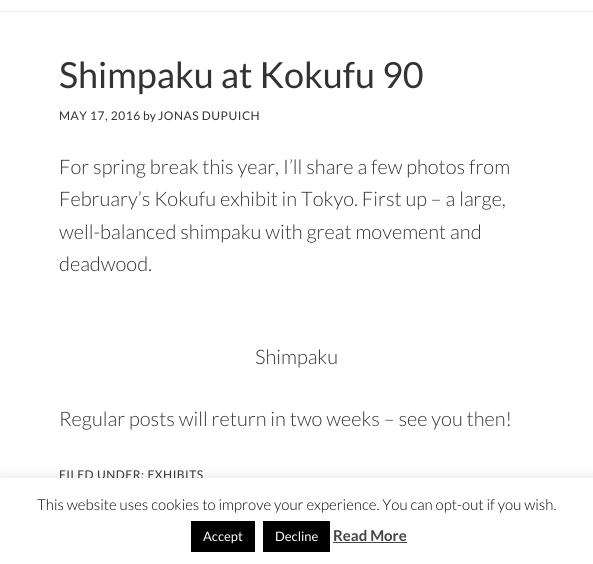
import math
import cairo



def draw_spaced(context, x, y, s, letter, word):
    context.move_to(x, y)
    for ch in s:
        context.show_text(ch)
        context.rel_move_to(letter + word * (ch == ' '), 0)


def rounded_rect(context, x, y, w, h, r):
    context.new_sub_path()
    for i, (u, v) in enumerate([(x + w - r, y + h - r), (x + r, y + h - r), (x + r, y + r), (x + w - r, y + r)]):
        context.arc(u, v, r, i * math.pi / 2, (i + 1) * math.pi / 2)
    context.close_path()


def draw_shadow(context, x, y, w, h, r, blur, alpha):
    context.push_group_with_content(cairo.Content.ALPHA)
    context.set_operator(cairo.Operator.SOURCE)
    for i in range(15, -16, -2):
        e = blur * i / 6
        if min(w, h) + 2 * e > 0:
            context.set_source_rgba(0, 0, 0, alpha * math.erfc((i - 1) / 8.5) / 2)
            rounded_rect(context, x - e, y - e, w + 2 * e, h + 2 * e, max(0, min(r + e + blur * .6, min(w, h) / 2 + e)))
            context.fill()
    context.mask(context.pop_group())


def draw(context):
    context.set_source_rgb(1, 1, 1)
    context.paint()
    context.set_source_rgb(238 / 255, 238 / 255, 238 / 255)
    context.rectangle(0, 11, 593, 1)
    context.fill()
    context.set_source_rgb(172 / 255, 171 / 255, 171 / 255)
    draw_shadow(context, 0, 477, 593, 86, 0, 5, 0.3)
    context.select_font_face("Lato")
    context.set_font_size(36)
    context.set_source_rgb(51 / 255, 51 / 255, 51 / 255)
    context.move_to(59, 88)
    context.show_text("Shimpaku at Kokufu 90")
    context.set_font_size(12)
    draw_spaced(context, 59, 120, "MAY 17, 2016", 0.5, 0)
    context.move_to(143, 120)
    context.show_text("by")
    draw_spaced(context, 158, 120, "JONAS DUPUICH", 0.5, 0)
    context.select_font_face("Lato Light")
    context.set_font_size(20)
    context.move_to(59, 174)
    context.show_text("For spring break this year, I’ll share a few photos from")
    context.move_to(59, 206)
    context.show_text("February’s Kokufu exhibit in Tokyo. First up – a large,")
    context.move_to(59, 239)
    context.show_text("well-balanced shimpaku with great movement and")
    context.move_to(59, 271)
    context.show_text("deadwood.")
    context.move_to(255, 364)
    context.show_text("Shimpaku")
    context.move_to(59, 426)
    context.show_text("Regular posts will return in two weeks – see you then!")
    context.select_font_face("Lato")
    context.set_font_size(12)
    draw_spaced(context, 59, 479, "FILED UNDER: EXHIBITS", 0.5, 0)
    context.set_source_rgb(1, 1, 1)
    context.rectangle(0, 478, 593, 86)
    context.fill()
    context.select_font_face("Lato Light")
    context.set_font_size(15)
    context.set_source_rgb(0, 0, 0)
    context.move_to(37, 510)
    context.show_text("This website uses cookies to improve your experience. You can opt-out if you wish.")
    context.rectangle(191, 521, 64, 31)
    context.fill()
    context.select_font_face("Lato")
    context.set_font_size(13)
    context.set_source_rgb(1, 1, 1)
    context.move_to(203, 541)
    context.show_text("Accept")
    context.set_source_rgb(0, 0, 0)
    context.rectangle(263, 521, 67, 31)
    context.fill()
    context.set_source_rgb(1, 1, 1)
    context.move_to(275, 541)
    context.show_text("Decline")
    context.select_font_face("Lato", cairo.FontSlant.NORMAL, cairo.FontWeight.BOLD)
    context.set_font_size(15)
    context.set_source_rgb(68 / 255, 68 / 255, 68 / 255)
    context.move_to(333, 541)
    context.show_text("Read More")
    context.rectangle(333, 542, 74, 1)
    context.fill()


surface = cairo.ImageSurface(cairo.Format.RGB24, 593, 564)
context = cairo.Context(surface)
options = cairo.FontOptions()
options.set_hint_metrics(cairo.HintMetrics.OFF)
options.set_hint_style(cairo.HintStyle.NONE)
context.set_font_options(options)
context.set_miter_limit(4)
draw(context)
surface.write_to_png("out.png")
